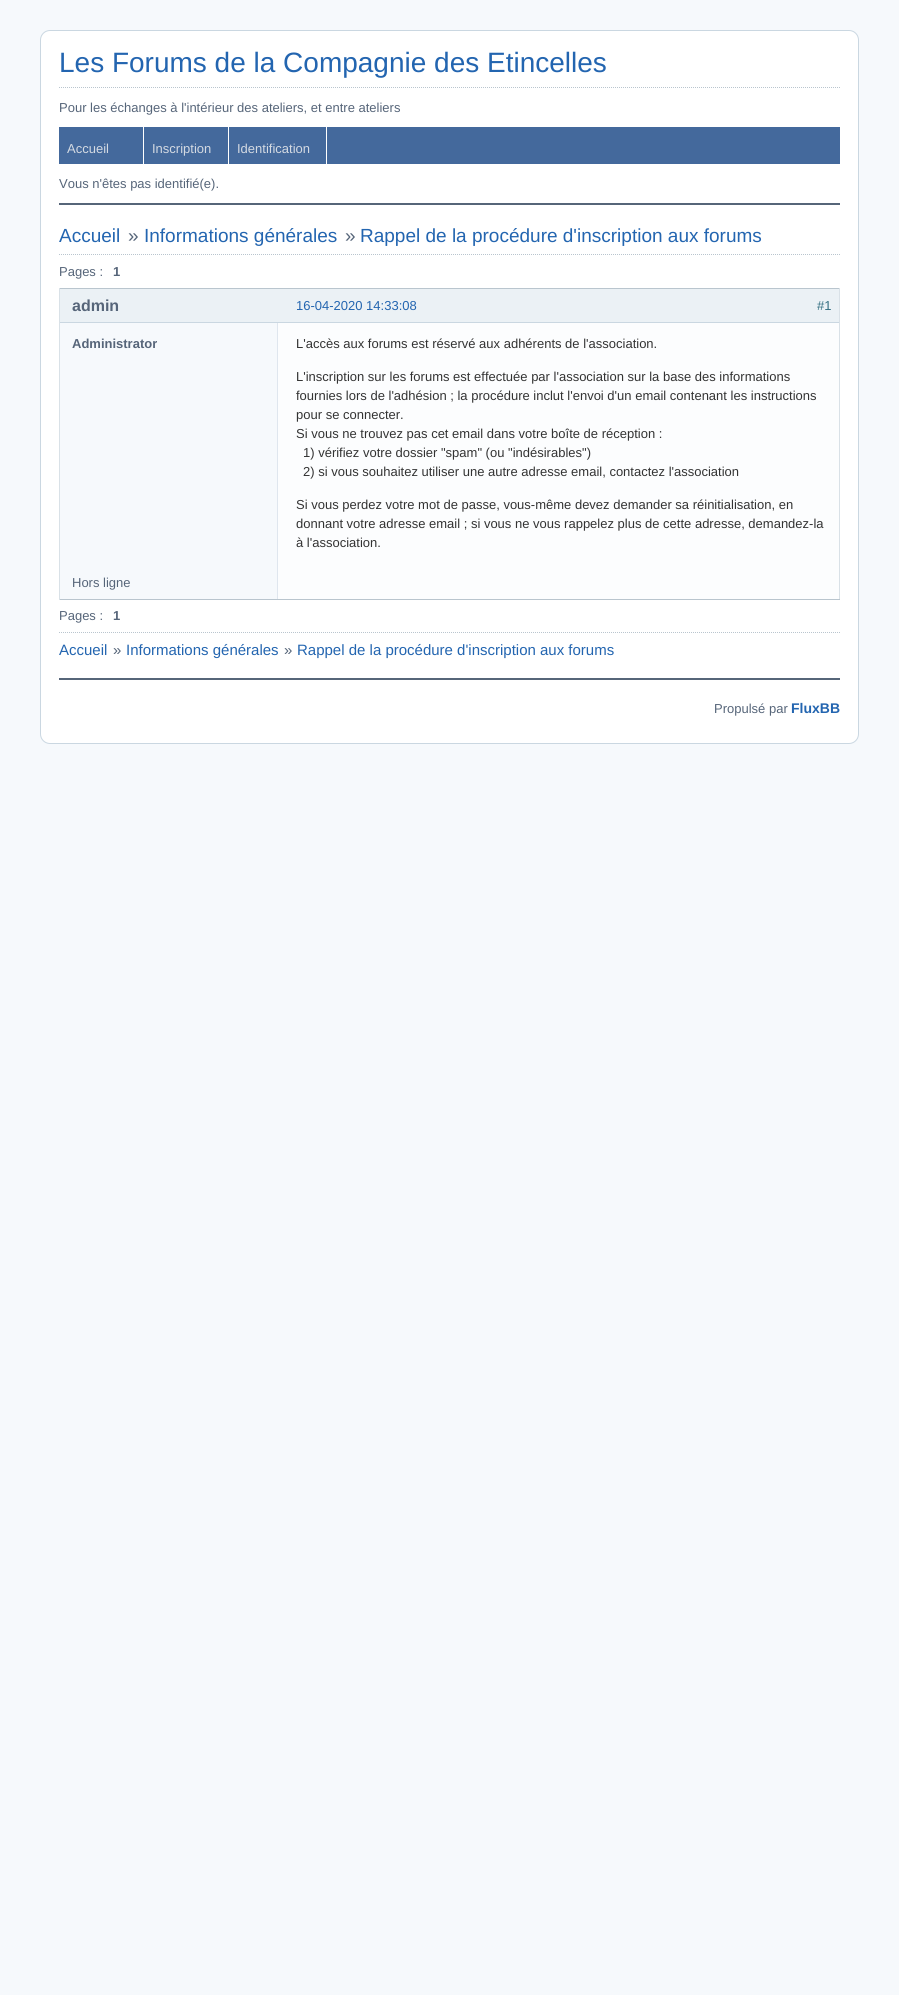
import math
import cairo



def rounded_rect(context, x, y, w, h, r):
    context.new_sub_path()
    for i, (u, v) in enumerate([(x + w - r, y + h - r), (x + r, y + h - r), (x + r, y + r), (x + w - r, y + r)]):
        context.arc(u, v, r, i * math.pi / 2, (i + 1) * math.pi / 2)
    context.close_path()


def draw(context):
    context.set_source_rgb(246 / 255, 249 / 255, 252 / 255)
    context.paint()
    context.set_source_rgb(1, 1, 1)
    rounded_rect(context, 40.5, 30.5, 818, 713, 9.5)
    context.fill_preserve()
    context.set_source_rgb(202 / 255, 215 / 255, 225 / 255)
    context.set_line_width(1)
    context.stroke()
    context.new_path()
    context.move_to(59, 87.5)
    context.line_to(840, 87.5)
    context.set_source_rgb(185 / 255, 197 / 255, 206 / 255)
    context.set_dash([1, 1])
    context.stroke()
    context.set_source_rgb(68 / 255, 105 / 255, 156 / 255)
    context.rectangle(59, 127, 781, 37)
    context.fill()
    context.set_source_rgb(1, 1, 1)
    context.rectangle(143, 127, 1, 37)
    context.fill()
    context.rectangle(228, 127, 1, 37)
    context.fill()
    context.rectangle(326, 127, 1, 37)
    context.fill()
    context.set_source_rgb(86 / 255, 101 / 255, 121 / 255)
    context.rectangle(59, 203, 781, 2)
    context.fill()
    context.rectangle(59, 678, 781, 2)
    context.fill()
    context.new_path()
    context.move_to(59, 254.5)
    context.line_to(840, 254.5)
    context.set_source_rgb(185 / 255, 197 / 255, 206 / 255)
    context.stroke()
    context.set_source_rgb(246 / 255, 249 / 255, 252 / 255)
    context.rectangle(60, 323, 217, 276)
    context.fill()
    context.set_source_rgb(185 / 255, 197 / 255, 206 / 255)
    context.rectangle(59, 288, 781, 1)
    context.fill()
    context.set_source_rgb(217 / 255, 225 / 255, 231 / 255)
    context.rectangle(839, 288, 1, 312)
    context.fill()
    context.set_source_rgb(185 / 255, 197 / 255, 206 / 255)
    context.rectangle(59, 599, 781, 1)
    context.fill()
    context.set_source_rgb(217 / 255, 225 / 255, 231 / 255)
    context.rectangle(59, 288, 1, 312)
    context.fill()
    context.set_source_rgb(252 / 255, 253 / 255, 254 / 255)
    context.rectangle(278, 323, 561, 276)
    context.fill()
    context.set_source_rgb(223 / 255, 230 / 255, 238 / 255)
    context.rectangle(277, 323, 1, 276)
    context.fill()
    context.set_source_rgb(235 / 255, 241 / 255, 245 / 255)
    context.rectangle(60, 289, 779, 33)
    context.fill()
    context.set_source_rgb(202 / 255, 215 / 255, 225 / 255)
    context.rectangle(60, 322, 779, 1)
    context.fill()
    context.new_path()
    context.move_to(59, 632.5)
    context.line_to(840, 632.5)
    context.set_source_rgb(185 / 255, 197 / 255, 206 / 255)
    context.stroke()
    context.select_font_face("Liberation Sans")
    context.set_font_size(28)
    context.set_source_rgb(35 / 255, 101 / 255, 176 / 255)
    context.move_to(59, 72)
    context.show_text("Les Forums de la Compagnie des Etincelles")
    context.set_font_size(13)
    context.set_source_rgb(86 / 255, 101 / 255, 121 / 255)
    context.move_to(59, 112)
    context.show_text("Pour les échanges à l'intérieur des ateliers, et entre ateliers")
    context.set_source_rgb(212 / 255, 218 / 255, 226 / 255)
    context.move_to(67, 153)
    context.show_text("Accueil")
    context.move_to(152, 153)
    context.show_text("Inscription")
    context.move_to(237, 153)
    context.show_text("Identification")
    context.set_source_rgb(86 / 255, 101 / 255, 121 / 255)
    context.move_to(59, 188)
    context.show_text("Vous n'êtes pas identifié(e).")
    context.set_font_size(19)
    context.set_source_rgb(35 / 255, 101 / 255, 176 / 255)
    context.move_to(59, 242)
    context.show_text("Accueil")
    context.set_source_rgb(86 / 255, 101 / 255, 121 / 255)
    context.move_to(128, 242)
    context.show_text("»")
    context.set_source_rgb(35 / 255, 101 / 255, 176 / 255)
    context.move_to(144, 242)
    context.show_text("Informations générales")
    context.set_source_rgb(86 / 255, 101 / 255, 121 / 255)
    context.move_to(345, 242)
    context.show_text("»")
    context.set_source_rgb(35 / 255, 101 / 255, 176 / 255)
    context.move_to(360, 242)
    context.show_text("Rappel de la procédure d'inscription aux forums")
    context.set_font_size(13)
    context.set_source_rgb(86 / 255, 101 / 255, 121 / 255)
    context.move_to(59, 276)
    context.show_text("Pages :")
    context.select_font_face("Liberation Sans", cairo.FontSlant.NORMAL, cairo.FontWeight.BOLD)
    context.move_to(113, 276)
    context.show_text("1")
    context.set_font_size(16)
    context.move_to(72, 311)
    context.show_text("admin")
    context.set_font_size(13)
    context.move_to(72, 348)
    context.show_text("Administrator")
    context.select_font_face("Liberation Sans")
    context.set_source_rgb(51 / 255, 51 / 255, 51 / 255)
    context.move_to(296, 348)
    context.show_text("L'accès aux forums est réservé aux adhérents de l'association.")
    context.move_to(296, 381)
    context.show_text("L'inscription sur les forums est effectuée par l'association sur la base des informations")
    context.move_to(296, 400)
    context.show_text("fournies lors de l'adhésion ; la procédure inclut l'envoi d'un email contenant les instructions")
    context.move_to(296, 419)
    context.show_text("pour se connecter.")
    context.move_to(296, 438)
    context.show_text("Si vous ne trouvez pas cet email dans votre boîte de réception :")
    context.move_to(303, 457)
    context.show_text("1) vérifiez votre dossier \"spam\" (ou \"indésirables\")")
    context.move_to(303, 476)
    context.show_text("2) si vous souhaitez utiliser une autre adresse email, contactez l'association")
    context.move_to(296, 509)
    context.show_text("Si vous perdez votre mot de passe, vous-même devez demander sa réinitialisation, en")
    context.move_to(296, 528)
    context.show_text("donnant votre adresse email ; si vous ne vous rappelez plus de cette adresse, demandez-la")
    context.move_to(296, 547)
    context.show_text("à l'association.")
    context.set_source_rgb(86 / 255, 101 / 255, 121 / 255)
    context.move_to(72, 587)
    context.show_text("Hors ligne")
    context.set_source_rgb(35 / 255, 101 / 255, 176 / 255)
    context.move_to(296, 310)
    context.show_text("16-04-2020 14:33:08")
    context.set_source_rgb(53 / 255, 112 / 255, 130 / 255)
    context.move_to(817, 310)
    context.show_text("#1")
    context.set_source_rgb(86 / 255, 101 / 255, 121 / 255)
    context.move_to(59, 620)
    context.show_text("Pages :")
    context.select_font_face("Liberation Sans", cairo.FontSlant.NORMAL, cairo.FontWeight.BOLD)
    context.move_to(113, 620)
    context.show_text("1")
    context.select_font_face("Liberation Sans")
    context.set_font_size(15)
    context.set_source_rgb(35 / 255, 101 / 255, 176 / 255)
    context.move_to(59, 655)
    context.show_text("Accueil")
    context.set_source_rgb(86 / 255, 101 / 255, 121 / 255)
    context.move_to(113, 655)
    context.show_text("»")
    context.set_source_rgb(35 / 255, 101 / 255, 176 / 255)
    context.move_to(126, 655)
    context.show_text("Informations générales")
    context.set_source_rgb(86 / 255, 101 / 255, 121 / 255)
    context.move_to(284, 655)
    context.show_text("»")
    context.set_source_rgb(35 / 255, 101 / 255, 176 / 255)
    context.move_to(297, 655)
    context.show_text("Rappel de la procédure d'inscription aux forums")
    context.set_font_size(13)
    context.set_source_rgb(86 / 255, 101 / 255, 121 / 255)
    context.move_to(714, 713)
    context.show_text("Propulsé par")
    context.select_font_face("Liberation Sans", cairo.FontSlant.NORMAL, cairo.FontWeight.BOLD)
    context.set_font_size(14)
    context.set_source_rgb(35 / 255, 101 / 255, 176 / 255)
    context.move_to(791, 713)
    context.show_text("FluxBB")


surface = cairo.ImageSurface(cairo.Format.RGB24, 899, 1995)
context = cairo.Context(surface)
options = cairo.FontOptions()
options.set_hint_metrics(cairo.HintMetrics.OFF)
options.set_hint_style(cairo.HintStyle.NONE)
context.set_font_options(options)
context.set_miter_limit(4)
draw(context)
surface.write_to_png("out.png")
